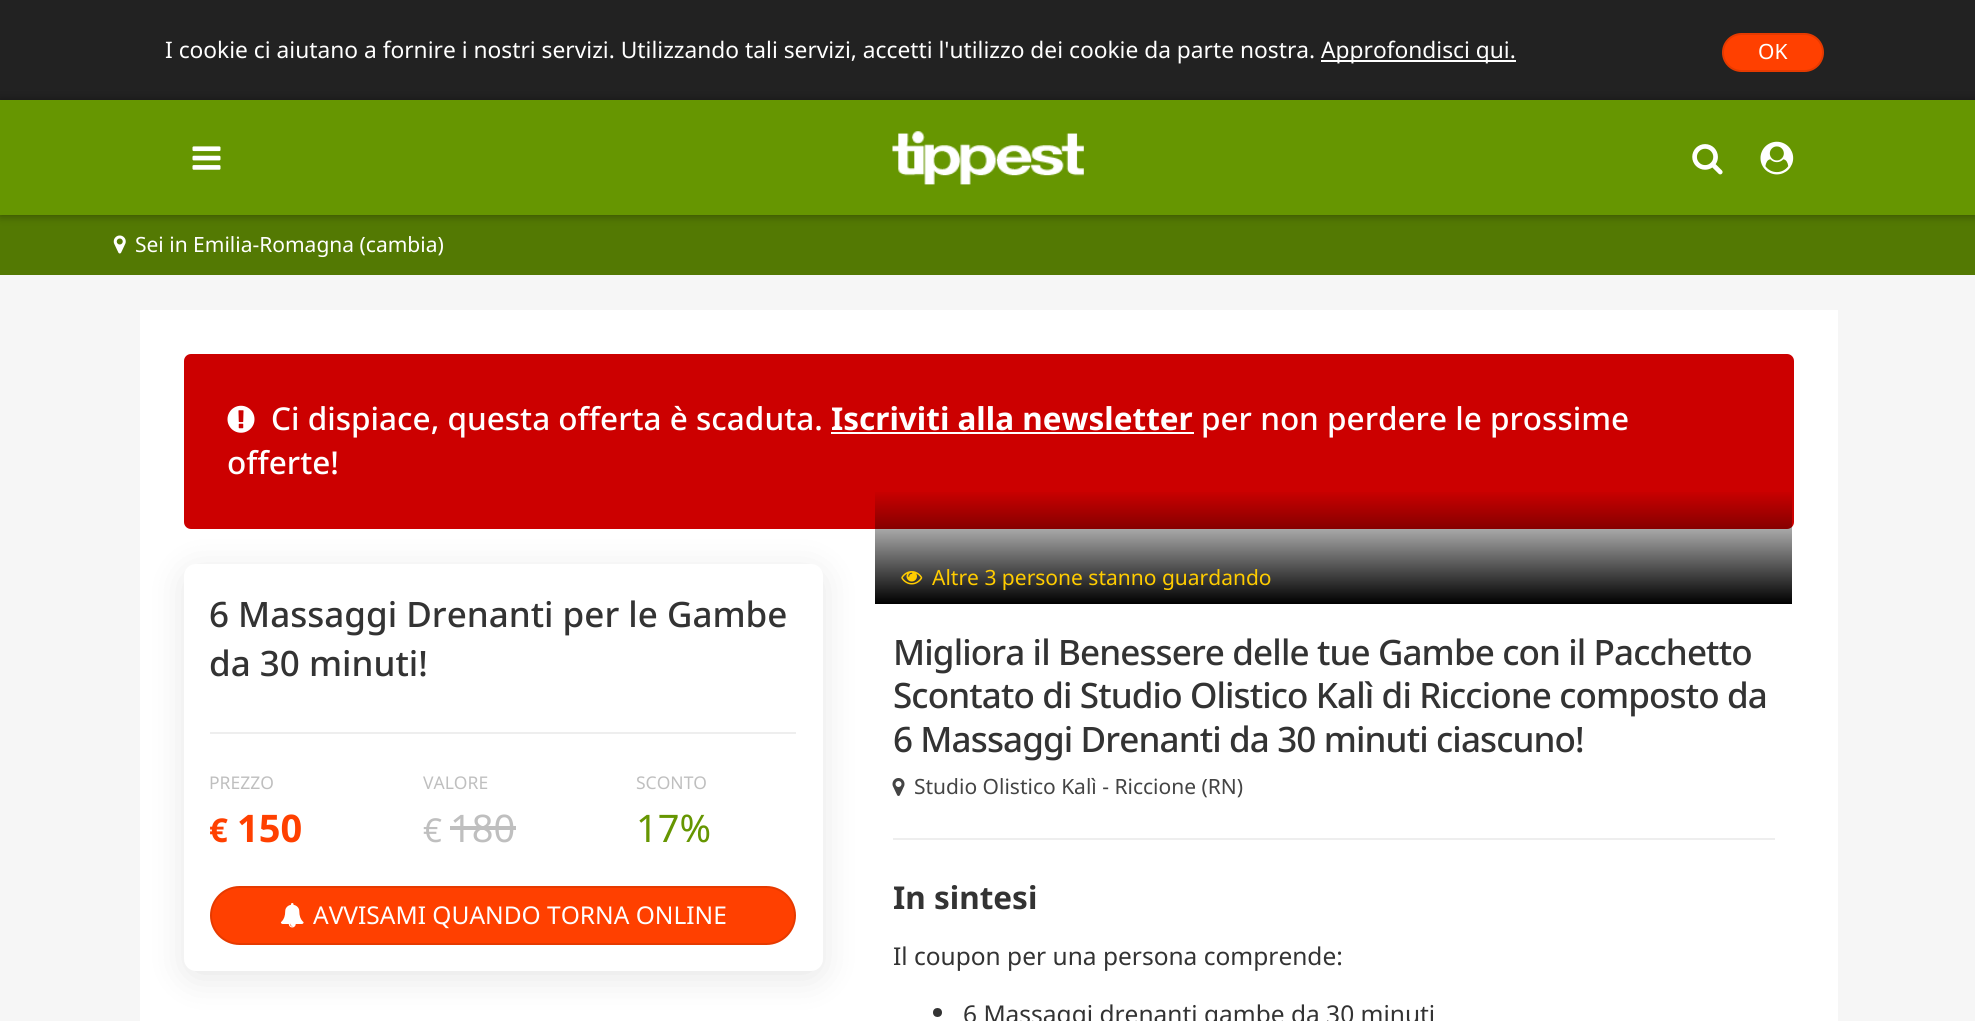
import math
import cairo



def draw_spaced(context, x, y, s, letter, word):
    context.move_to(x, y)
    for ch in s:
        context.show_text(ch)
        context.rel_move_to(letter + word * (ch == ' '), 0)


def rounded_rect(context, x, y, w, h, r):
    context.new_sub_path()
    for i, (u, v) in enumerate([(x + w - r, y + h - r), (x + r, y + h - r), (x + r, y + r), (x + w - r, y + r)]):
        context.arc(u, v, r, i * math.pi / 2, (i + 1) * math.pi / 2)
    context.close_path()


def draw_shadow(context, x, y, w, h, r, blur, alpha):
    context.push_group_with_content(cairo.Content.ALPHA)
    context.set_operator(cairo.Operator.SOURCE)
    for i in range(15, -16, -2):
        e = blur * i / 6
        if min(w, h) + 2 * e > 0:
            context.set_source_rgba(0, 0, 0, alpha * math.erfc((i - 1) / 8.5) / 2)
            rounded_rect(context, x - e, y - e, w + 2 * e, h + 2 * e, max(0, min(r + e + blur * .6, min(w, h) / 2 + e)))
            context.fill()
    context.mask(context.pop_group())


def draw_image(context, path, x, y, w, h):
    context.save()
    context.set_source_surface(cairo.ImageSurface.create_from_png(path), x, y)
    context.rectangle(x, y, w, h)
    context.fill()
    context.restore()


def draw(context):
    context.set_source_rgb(246 / 255, 246 / 255, 246 / 255)
    context.paint()
    context.set_source_rgb(34 / 255, 34 / 255, 34 / 255)
    context.rectangle(0, 0, 1975, 100)
    context.fill()
    context.set_source_rgb(1, 1, 1)
    context.rectangle(1321, 60, 195, 2)
    context.fill()
    context.set_source_rgb(1, 64 / 255, 0)
    rounded_rect(context, 1723, 34, 100, 37, 18.5)
    context.fill_preserve()
    context.set_source_rgb(230 / 255, 58 / 255, 0)
    context.stroke()
    context.set_source_rgb(83 / 255, 121 / 255, 3 / 255)
    context.rectangle(0, 215, 1975, 60)
    context.fill()
    context.set_source_rgb(0, 0, 0)
    draw_shadow(context, 0, 100, 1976, 115, 0, 5, 0.4)
    context.set_source_rgb(102 / 255, 150 / 255, 1 / 255)
    context.rectangle(0, 100, 1975, 115)
    context.fill()
    draw_image(context, "images/1.png", 192, 146, 29, 24)
    draw_image(context, "images/2.png", 892, 131, 192, 54)
    draw_image(context, "images/3.png", 1692, 144, 31, 31)
    draw_image(context, "images/4.png", 1760, 141, 34, 34)
    draw_image(context, "images/5.png", 113, 235, 13, 19)
    context.set_source_rgb(1, 1, 1)
    context.rectangle(140, 310, 1698, 711)
    context.fill()
    context.set_source_rgb(0, 0, 0)
    draw_shadow(context, 184, 571, 639, 407, 12, 17.5, 0.1)
    context.set_source_rgb(204 / 255, 0, 0)
    rounded_rect(context, 184, 354, 1610, 175, 7)
    context.fill()
    draw_image(context, "images/6.png", 227, 405, 28, 28)
    context.set_source_rgb(1, 1, 1)
    context.rectangle(831, 432, 363, 2)
    context.fill()
    rounded_rect(context, 184, 564, 639, 407, 12)
    context.fill()
    context.set_source_rgb(238 / 255, 238 / 255, 238 / 255)
    context.rectangle(210, 732, 586, 2)
    context.fill()
    context.set_source_rgb(191 / 255, 191 / 255, 191 / 255)
    context.rectangle(450, 826, 66, 4)
    context.fill()
    context.set_source_rgb(1, 64 / 255, 0)
    rounded_rect(context, 211, 887, 584, 57, 28.5)
    context.fill_preserve()
    context.set_source_rgb(230 / 255, 58 / 255, 0)
    context.stroke()
    draw_image(context, "images/7.png", 280, 903, 24, 25)
    gradient = cairo.LinearGradient(1334, 604, 1334, 490)
    gradient.add_color_stop_rgba(0, 0, 0, 0, 1)
    gradient.add_color_stop_rgba(1, 0, 0, 0, 0)
    context.set_source(gradient)
    context.rectangle(875, 492, 917, 112)
    context.fill()
    draw_image(context, "images/8.png", 901, 571, 22, 14)
    draw_image(context, "images/9.png", 892, 778, 13, 18)
    context.set_source_rgb(238 / 255, 238 / 255, 238 / 255)
    context.rectangle(893, 838, 882, 2)
    context.fill()
    context.set_source_rgb(51 / 255, 51 / 255, 51 / 255)
    context.arc(937.5, 1012.5, 4.5, 0, 2 * math.pi)
    context.fill()
    context.select_font_face("Noto Sans")
    context.set_font_size(22.75)
    context.set_source_rgb(1, 1, 1)
    context.move_to(165, 58)
    context.show_text("I cookie ci aiutano a fornire i nostri servizi. Utilizzando tali servizi, accetti l'utilizzo dei cookie da parte nostra.")
    context.move_to(1321, 58)
    context.show_text("Approfondisci qui.")
    context.set_font_size(21)
    context.move_to(1758, 59)
    context.show_text("OK")
    context.move_to(135, 252)
    context.show_text("Sei in Emilia-Romagna (cambia)")
    context.select_font_face("Noto Sans Medium")
    context.set_font_size(31.5)
    context.move_to(271, 430)
    context.show_text("Ci dispiace, questa offerta è scaduta.")
    context.select_font_face("Noto Sans", cairo.FontSlant.NORMAL, cairo.FontWeight.BOLD)
    context.move_to(831, 430)
    context.show_text("Iscriviti alla newsletter")
    context.select_font_face("Noto Sans Medium")
    context.move_to(1201, 430)
    context.show_text("per non perdere le prossime")
    context.move_to(227, 474)
    context.show_text("offerte!")
    context.set_font_size(35)
    context.set_source_rgb(51 / 255, 51 / 255, 51 / 255)
    context.move_to(209, 627)
    context.show_text("6 Massaggi Drenanti per le Gambe")
    context.move_to(209, 676)
    context.show_text("da 30 minuti!")
    context.select_font_face("Noto Sans")
    context.set_font_size(17.5)
    context.set_source_rgb(191 / 255, 191 / 255, 191 / 255)
    context.move_to(209, 789)
    context.show_text("PREZZO")
    context.select_font_face("Noto Sans", cairo.FontSlant.NORMAL, cairo.FontWeight.BOLD)
    context.set_font_size(33)
    context.set_source_rgb(1, 64 / 255, 0)
    context.move_to(209, 842)
    context.show_text("€")
    context.set_font_size(38)
    context.move_to(237, 842)
    context.show_text("150")
    context.select_font_face("Noto Sans")
    context.set_font_size(17.5)
    context.set_source_rgb(191 / 255, 191 / 255, 191 / 255)
    context.move_to(423, 789)
    context.show_text("VALORE")
    context.set_font_size(33)
    context.move_to(423, 842)
    context.show_text("€")
    context.set_font_size(38)
    context.move_to(450, 842)
    context.show_text("180")
    context.set_font_size(17.5)
    context.move_to(636, 789)
    context.show_text("SCONTO")
    context.set_font_size(38)
    context.set_source_rgb(102 / 255, 150 / 255, 1 / 255)
    context.move_to(636, 842)
    context.show_text("17%")
    context.set_font_size(24.5)
    context.set_source_rgb(1, 1, 1)
    context.move_to(313, 924)
    context.show_text("AVVISAMI QUANDO TORNA ONLINE")
    context.set_font_size(21)
    context.set_source_rgb(1, 204 / 255, 0)
    context.move_to(932, 585)
    context.show_text("Altre 3 persone stanno guardando")
    context.select_font_face("Noto Sans Medium")
    context.set_font_size(35)
    context.set_source_rgb(51 / 255, 51 / 255, 51 / 255)
    draw_spaced(context, 893, 665, "Migliora il Benessere delle tue Gambe con il Pacchetto", -0.88, 0)
    draw_spaced(context, 893, 708, "Scontato di Studio Olistico Kalì di Riccione composto da", -0.88, 0)
    draw_spaced(context, 893, 752, "6 Massaggi Drenanti da 30 minuti ciascuno!", -0.88, 0)
    context.select_font_face("Noto Sans")
    context.set_font_size(21)
    context.set_source_rgb(68 / 255, 68 / 255, 68 / 255)
    context.move_to(914, 794)
    context.show_text("Studio Olistico Kalì - Riccione (RN)")
    context.select_font_face("Noto Sans", cairo.FontSlant.NORMAL, cairo.FontWeight.BOLD)
    context.set_font_size(31.5)
    context.set_source_rgb(51 / 255, 51 / 255, 51 / 255)
    context.move_to(893, 909)
    context.show_text("In sintesi")
    context.select_font_face("Noto Sans")
    context.set_font_size(24.5)
    context.move_to(893, 965)
    context.show_text("Il coupon per una persona comprende:")
    context.move_to(963, 1023)
    context.show_text("6 Massaggi drenanti gambe da 30 minuti")


surface = cairo.ImageSurface(cairo.Format.RGB24, 1975, 1021)
context = cairo.Context(surface)
options = cairo.FontOptions()
options.set_hint_metrics(cairo.HintMetrics.OFF)
options.set_hint_style(cairo.HintStyle.NONE)
context.set_font_options(options)
context.set_miter_limit(4)
draw(context)
surface.write_to_png("out.png")
